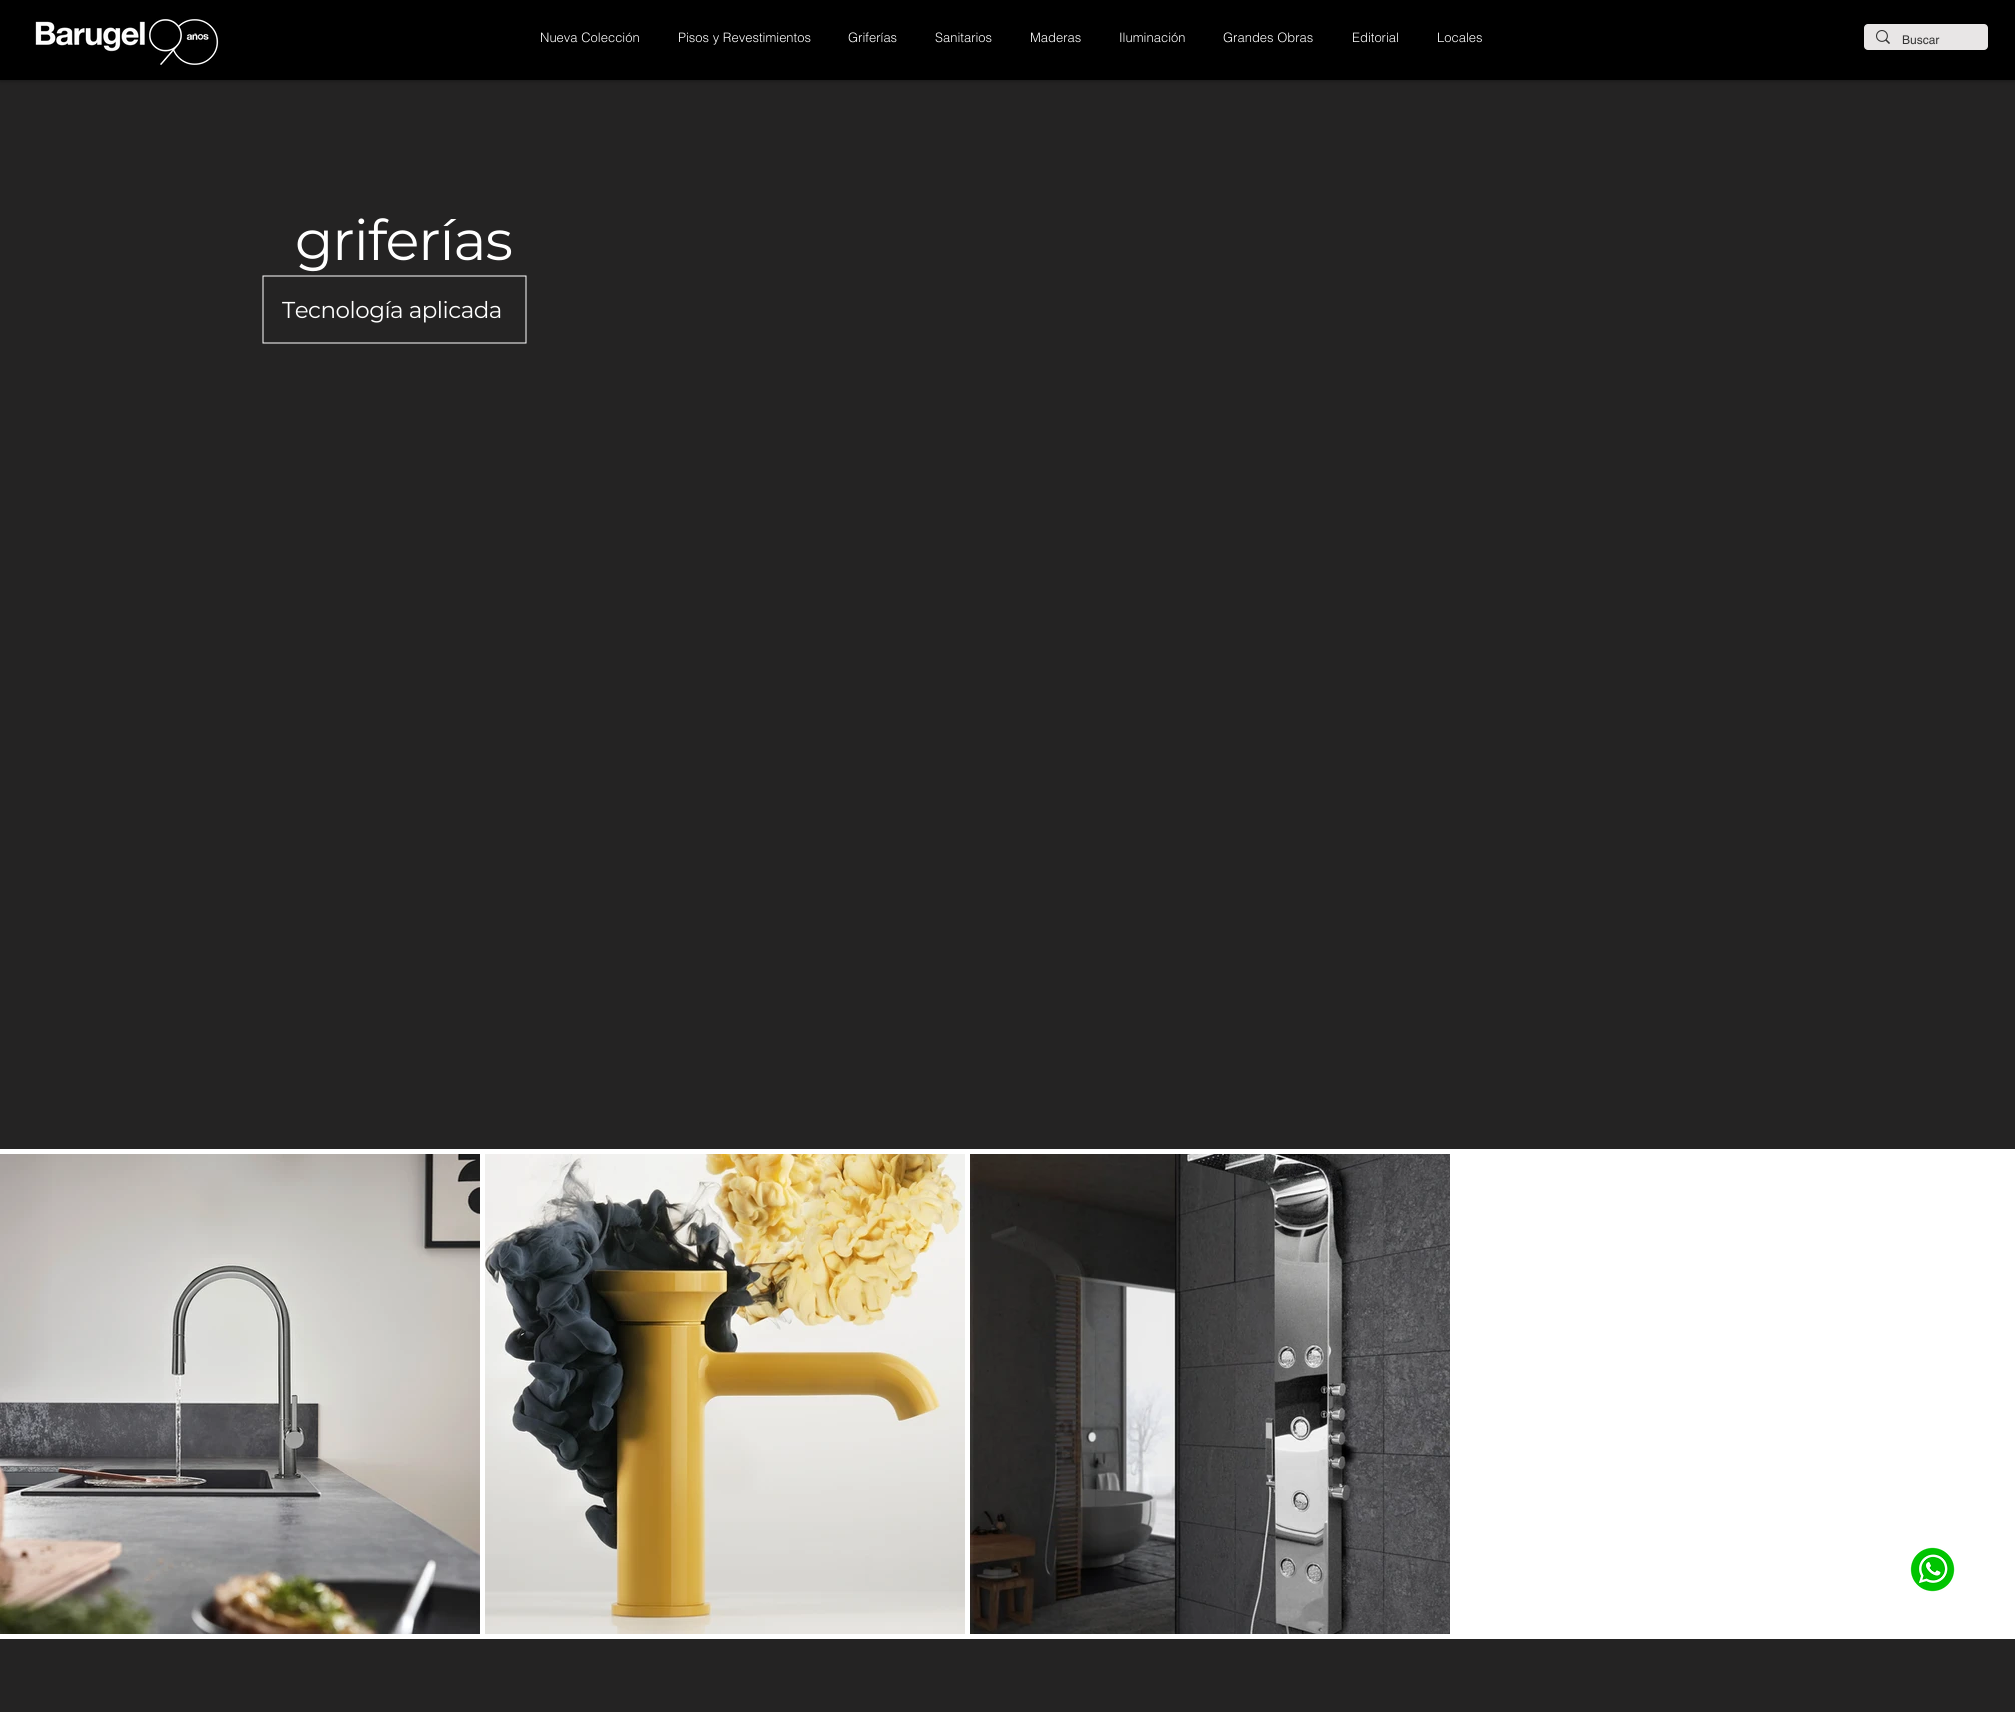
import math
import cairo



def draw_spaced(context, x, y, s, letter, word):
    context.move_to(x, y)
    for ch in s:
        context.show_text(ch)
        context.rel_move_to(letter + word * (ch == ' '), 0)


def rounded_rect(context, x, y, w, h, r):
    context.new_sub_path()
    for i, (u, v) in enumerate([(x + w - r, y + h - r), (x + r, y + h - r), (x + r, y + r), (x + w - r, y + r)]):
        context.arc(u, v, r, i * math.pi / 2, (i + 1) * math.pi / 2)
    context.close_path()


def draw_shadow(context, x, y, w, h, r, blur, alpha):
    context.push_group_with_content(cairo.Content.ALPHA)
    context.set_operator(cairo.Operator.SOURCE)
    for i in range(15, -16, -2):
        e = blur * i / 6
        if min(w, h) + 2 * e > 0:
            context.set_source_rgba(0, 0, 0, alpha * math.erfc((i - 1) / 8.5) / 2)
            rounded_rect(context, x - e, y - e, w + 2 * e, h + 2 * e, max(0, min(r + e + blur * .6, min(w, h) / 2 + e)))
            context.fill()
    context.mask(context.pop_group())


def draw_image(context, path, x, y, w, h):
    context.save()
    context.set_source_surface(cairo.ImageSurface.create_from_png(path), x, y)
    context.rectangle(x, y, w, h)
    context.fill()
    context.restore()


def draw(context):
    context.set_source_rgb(1, 1, 1)
    context.paint()
    context.set_source_rgb(36 / 255, 35 / 255, 35 / 255)
    context.rectangle(0, 80, 2015, 1069)
    context.fill()
    context.set_source_rgb(0, 0, 0)
    draw_shadow(context, 0, 0, 2015, 80, 0, 2.5, 0.5)
    context.set_source_rgb(0, 0, 0)
    context.rectangle(0, 0, 2015, 80)
    context.fill()
    draw_image(context, "images/1.png", 35, 19, 184, 46)
    context.set_source_rgb(232 / 255, 230 / 255, 230 / 255)
    rounded_rect(context, 1864, 24, 124, 26, 4)
    context.fill()
    draw_image(context, "images/2.png", 1876, 30, 14, 14)
    context.new_path()
    context.move_to(526, 276)
    context.line_to(526, 343)
    context.line_to(263, 343)
    context.line_to(263, 276)
    context.close_path()
    context.set_source_rgb(1, 1, 1)
    context.set_line_width(1)
    context.stroke()
    draw_image(context, "images/3.png", 0, 1154, 480, 480)
    draw_image(context, "images/4.png", 485, 1154, 480, 480)
    draw_image(context, "images/5.png", 970, 1154, 480, 480)
    context.set_source_rgb(36 / 255, 35 / 255, 35 / 255)
    context.rectangle(0, 1639, 2015, 73)
    context.fill()
    draw_image(context, "images/6.png", 1910, 1547, 45, 45)
    context.select_font_face("helvetica Light")
    context.set_font_size(13)
    context.set_source_rgb(1, 1, 1)
    context.move_to(540, 42)
    context.show_text("Nueva Colección")
    context.move_to(678, 42)
    context.show_text("Pisos y Revestimientos")
    context.move_to(848, 42)
    context.show_text("Griferías")
    context.move_to(935, 42)
    context.show_text("Sanitarios")
    context.move_to(1030, 42)
    context.show_text("Maderas")
    context.move_to(1119, 42)
    context.show_text("Iluminación")
    context.move_to(1223, 42)
    context.show_text("Grandes Obras")
    context.move_to(1352, 42)
    context.show_text("Editorial")
    context.move_to(1437, 42)
    context.show_text("Locales")
    context.select_font_face("helvetica")
    context.set_font_size(12)
    context.set_source_rgb(51 / 255, 51 / 255, 51 / 255)
    context.move_to(1902, 44)
    context.show_text("Buscar")
    context.select_font_face("Montserrat")
    context.set_font_size(56)
    context.set_source_rgb(1, 1, 1)
    draw_spaced(context, 295, 260, "griferías", -1.1, 0)
    context.set_font_size(23)
    draw_spaced(context, 282, 318, "Tecnología aplicada", -0.5, 0)


surface = cairo.ImageSurface(cairo.Format.RGB24, 2015, 1712)
context = cairo.Context(surface)
options = cairo.FontOptions()
options.set_hint_metrics(cairo.HintMetrics.OFF)
options.set_hint_style(cairo.HintStyle.NONE)
context.set_font_options(options)
context.set_miter_limit(4)
draw(context)
surface.write_to_png("out.png")
